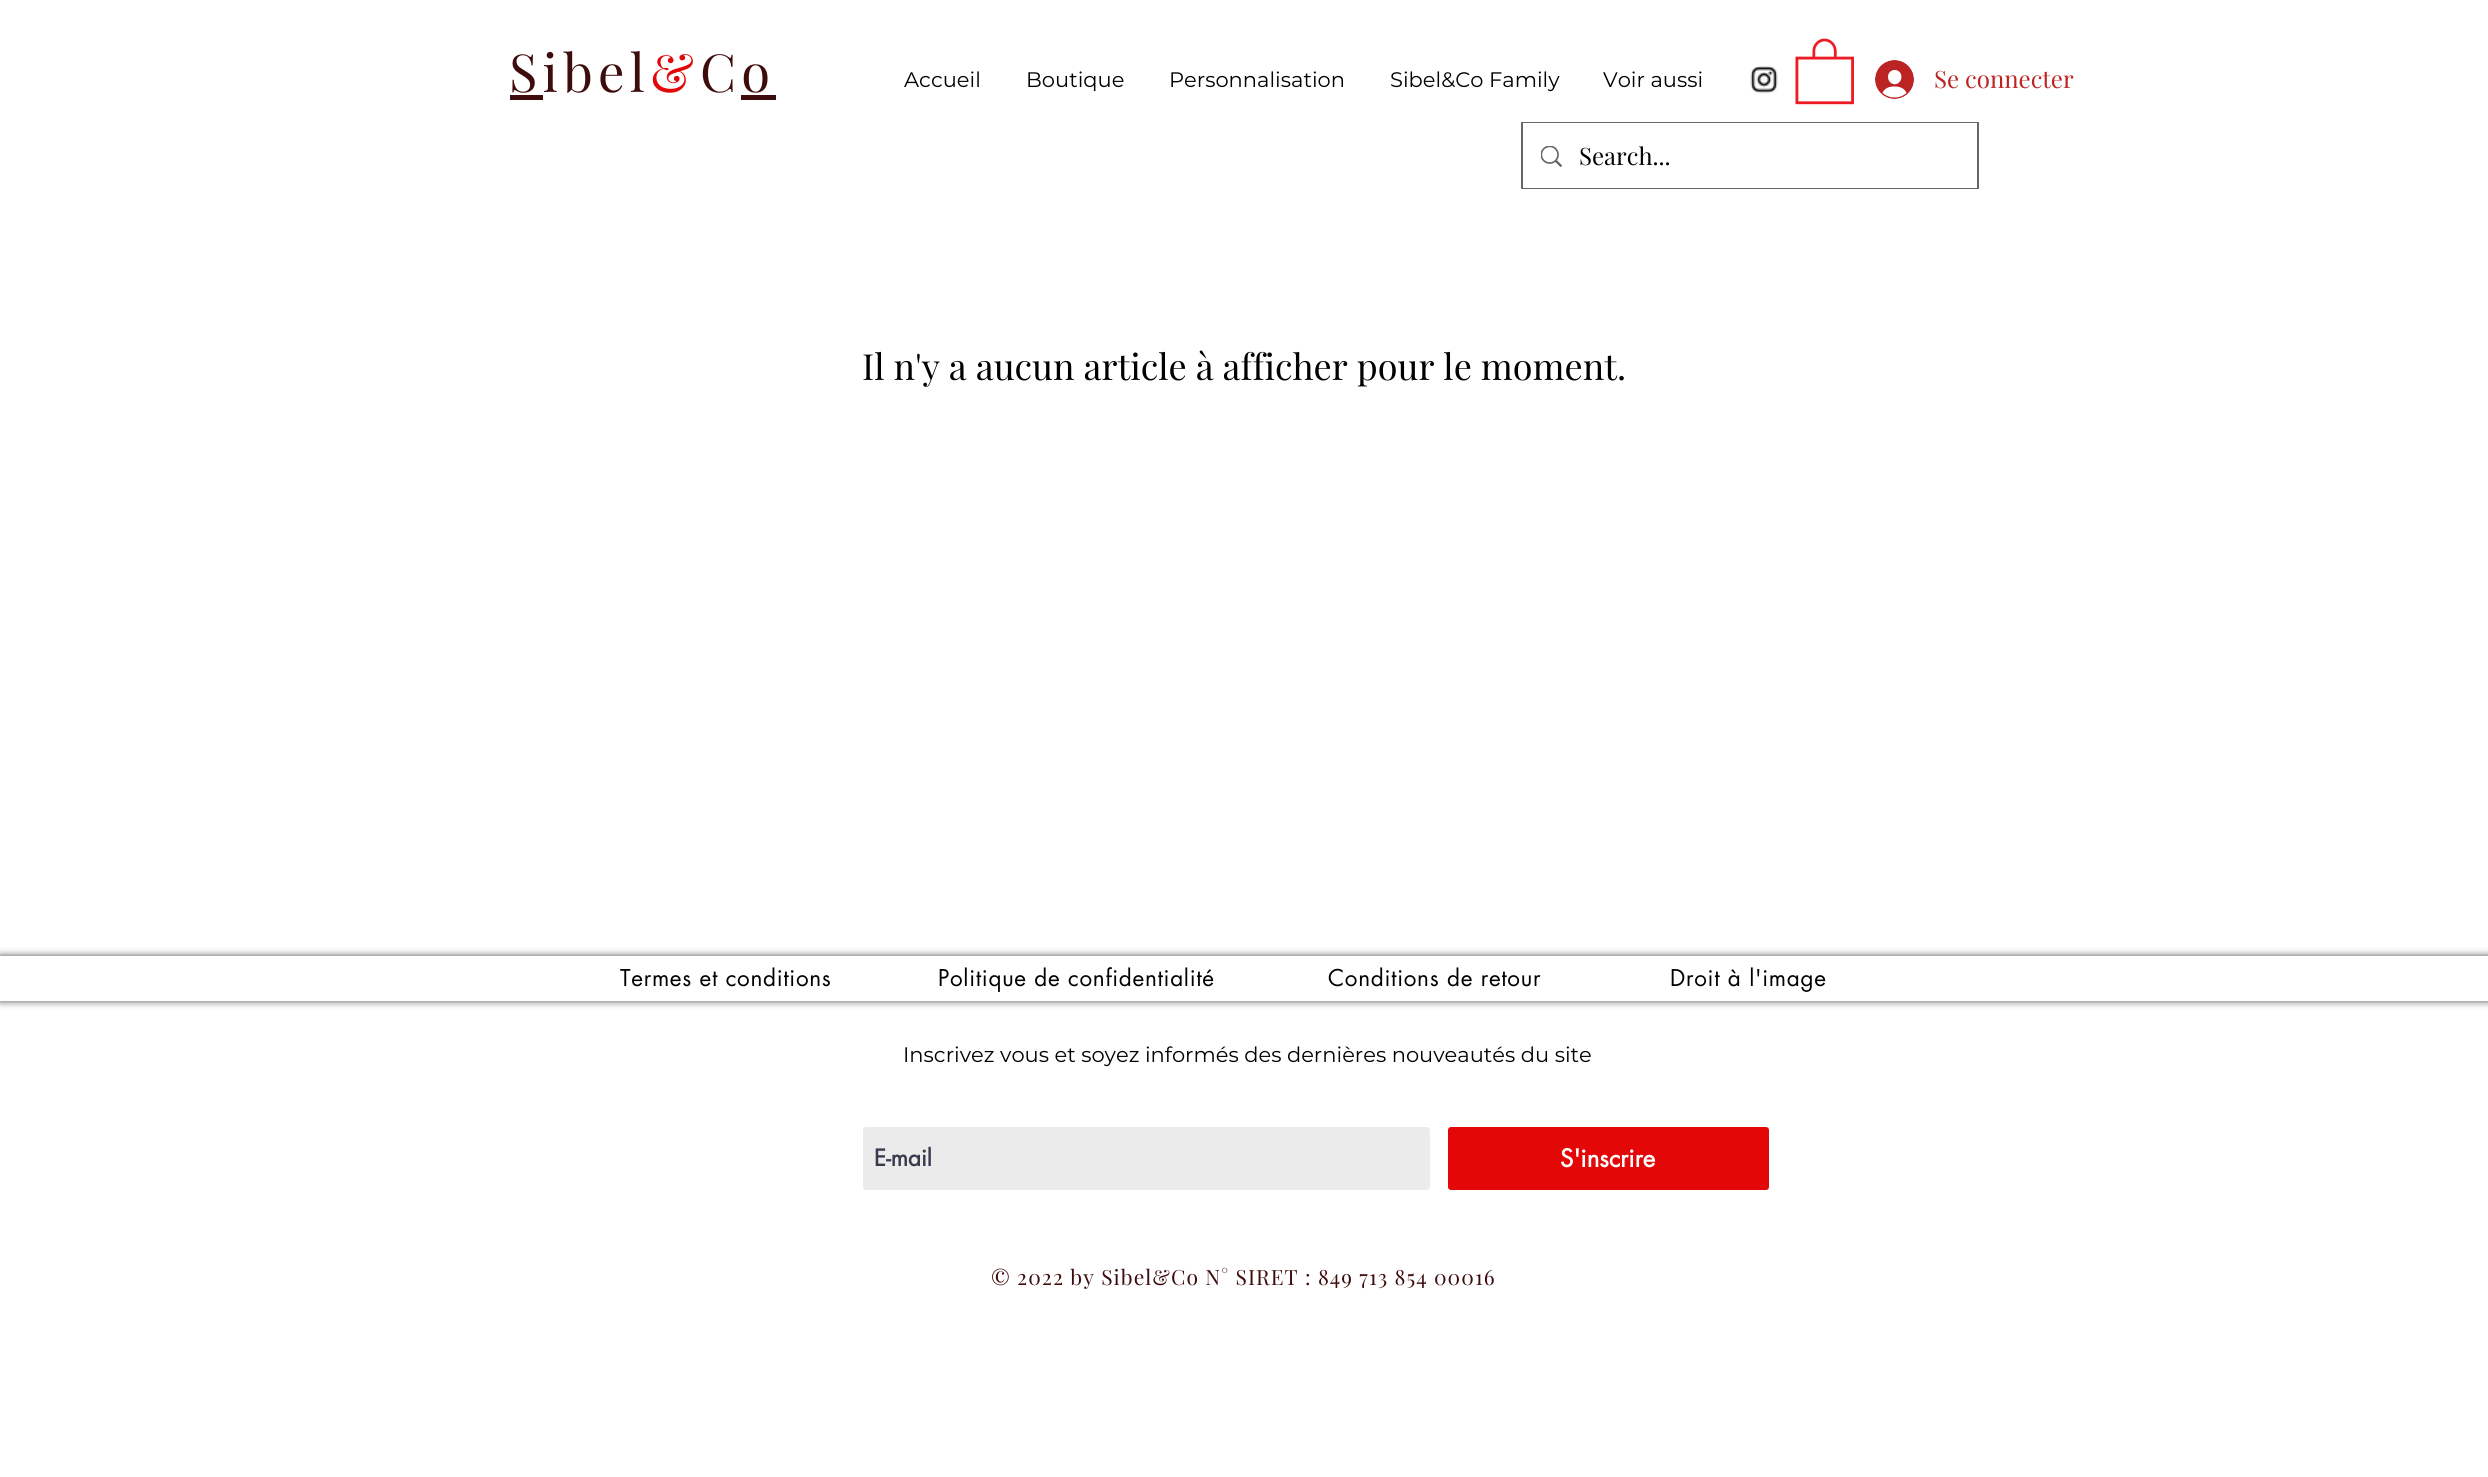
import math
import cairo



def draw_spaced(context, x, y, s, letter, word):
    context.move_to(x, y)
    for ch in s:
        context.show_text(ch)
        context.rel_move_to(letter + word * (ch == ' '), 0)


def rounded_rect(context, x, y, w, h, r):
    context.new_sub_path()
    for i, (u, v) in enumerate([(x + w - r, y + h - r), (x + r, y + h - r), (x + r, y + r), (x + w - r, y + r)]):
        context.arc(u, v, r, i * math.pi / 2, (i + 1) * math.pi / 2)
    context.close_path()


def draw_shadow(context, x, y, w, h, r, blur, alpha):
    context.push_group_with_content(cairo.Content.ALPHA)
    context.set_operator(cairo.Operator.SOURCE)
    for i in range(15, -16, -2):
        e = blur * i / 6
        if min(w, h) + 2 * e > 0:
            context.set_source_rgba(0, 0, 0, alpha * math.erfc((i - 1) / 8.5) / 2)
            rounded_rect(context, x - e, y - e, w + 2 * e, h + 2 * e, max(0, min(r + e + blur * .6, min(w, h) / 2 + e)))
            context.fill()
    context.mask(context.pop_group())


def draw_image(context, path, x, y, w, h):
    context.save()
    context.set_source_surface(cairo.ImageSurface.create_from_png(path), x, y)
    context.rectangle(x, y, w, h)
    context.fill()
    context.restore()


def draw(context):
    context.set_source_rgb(1, 1, 1)
    context.paint()
    context.set_source_rgb(62 / 255, 12 / 255, 12 / 255)
    context.rectangle(510, 95, 33, 5)
    context.fill()
    context.rectangle(741, 95, 35, 5)
    context.fill()
    draw_image(context, "images/1.png", 1750, 66, 28, 28)
    draw_image(context, "images/2.png", 1795, 38, 59, 67)
    draw_image(context, "images/3.png", 1875, 60, 39, 39)
    context.rectangle(1522, 123, 456, 65)
    context.set_source_rgb(102 / 255, 102 / 255, 102 / 255)
    context.stroke()
    context.set_source_rgb(1, 1, 1)
    context.rectangle(1523, 123, 454, 65)
    context.fill()
    draw_image(context, "images/4.png", 1541, 146, 21, 21)
    context.save()
    context.set_fill_rule(cairo.FillRule.EVEN_ODD)
    context.new_path()
    context.move_to(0, 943)
    context.line_to(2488, 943)
    context.line_to(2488, 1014)
    context.line_to(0, 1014)
    context.close_path()
    context.move_to(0, 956)
    context.line_to(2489, 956)
    context.line_to(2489, 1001)
    context.line_to(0, 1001)
    context.close_path()
    context.clip()
    context.set_source_rgb(0, 0, 0)
    draw_shadow(context, 0, 956, 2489, 45, 0, 4, 0.7)
    context.restore()
    context.set_source_rgba(1, 1, 1, 0.6)
    context.rectangle(0, 1000, 2488, 1)
    context.fill()
    context.set_source_rgb(235 / 255, 235 / 255, 235 / 255)
    rounded_rect(context, 863, 1127, 567, 63, 3)
    context.fill()
    context.set_source_rgb(227 / 255, 7 / 255, 7 / 255)
    rounded_rect(context, 1448, 1127, 321, 63, 3)
    context.fill()
    context.select_font_face("Playfair Display")
    context.set_font_size(52.5)
    context.set_source_rgb(62 / 255, 12 / 255, 12 / 255)
    draw_spaced(context, 509, 92, "Sibel", 5.25, 0)
    context.set_source_rgb(227 / 255, 7 / 255, 7 / 255)
    draw_spaced(context, 650, 92, "&", 5.25, 0)
    context.set_source_rgb(62 / 255, 12 / 255, 12 / 255)
    draw_spaced(context, 700, 92, "Co", 5.25, 0)
    context.select_font_face("Montserrat")
    context.set_font_size(21)
    context.set_source_rgb(0, 0, 0)
    context.move_to(904, 87)
    context.show_text("Accueil")
    context.move_to(1026, 87)
    context.show_text("Boutique")
    context.move_to(1169, 87)
    context.show_text("Personnalisation")
    context.move_to(1390, 87)
    context.show_text("Sibel&Co Family")
    context.move_to(1603, 87)
    context.show_text("Voir aussi")
    context.select_font_face("Playfair Display")
    context.set_font_size(24)
    context.set_source_rgb(187 / 255, 36 / 255, 35 / 255)
    context.move_to(1934, 88)
    context.show_text("Se connecter")
    context.set_source_rgb(0, 0, 0)
    context.move_to(1579, 165)
    context.show_text("Search...")
    context.set_font_size(36)
    context.move_to(862, 380)
    context.show_text("Il n'y a aucun article à afficher pour le moment.")
    context.select_font_face("futura")
    context.set_font_size(22.5)
    draw_spaced(context, 620, 986, "Termes et conditions", 0.7, 0)
    draw_spaced(context, 938, 986, "Politique de confidentialité", 0.7, 0)
    draw_spaced(context, 1328, 986, "Conditions de retour", 0.7, 0)
    draw_spaced(context, 1670, 986, "Droit à l'image", 0.7, 0)
    context.select_font_face("Montserrat")
    context.set_font_size(21)
    context.move_to(903, 1062)
    context.show_text("Inscrivez vous et soyez informés des dernières nouveautés du site")
    context.select_font_face("futura", cairo.FontSlant.NORMAL, cairo.FontWeight.BOLD)
    context.set_font_size(22.5)
    context.set_source_rgb(55 / 255, 59 / 255, 77 / 255)
    context.move_to(874, 1166)
    context.show_text("E-mail")
    context.set_font_size(24)
    context.set_source_rgb(1, 1, 1)
    context.move_to(1560, 1167)
    context.show_text("S'inscrire")
    context.select_font_face("Playfair Display")
    context.set_font_size(21)
    context.set_source_rgb(62 / 255, 12 / 255, 12 / 255)
    draw_spaced(context, 991, 1285, "© 2022 by Sibel&Co N° SIRET : 849 713 854 00016", 1.05, 0)


surface = cairo.ImageSurface(cairo.Format.RGB24, 2488, 1477)
context = cairo.Context(surface)
options = cairo.FontOptions()
options.set_hint_metrics(cairo.HintMetrics.OFF)
options.set_hint_style(cairo.HintStyle.NONE)
context.set_font_options(options)
context.set_miter_limit(4)
draw(context)
surface.write_to_png("out.png")
